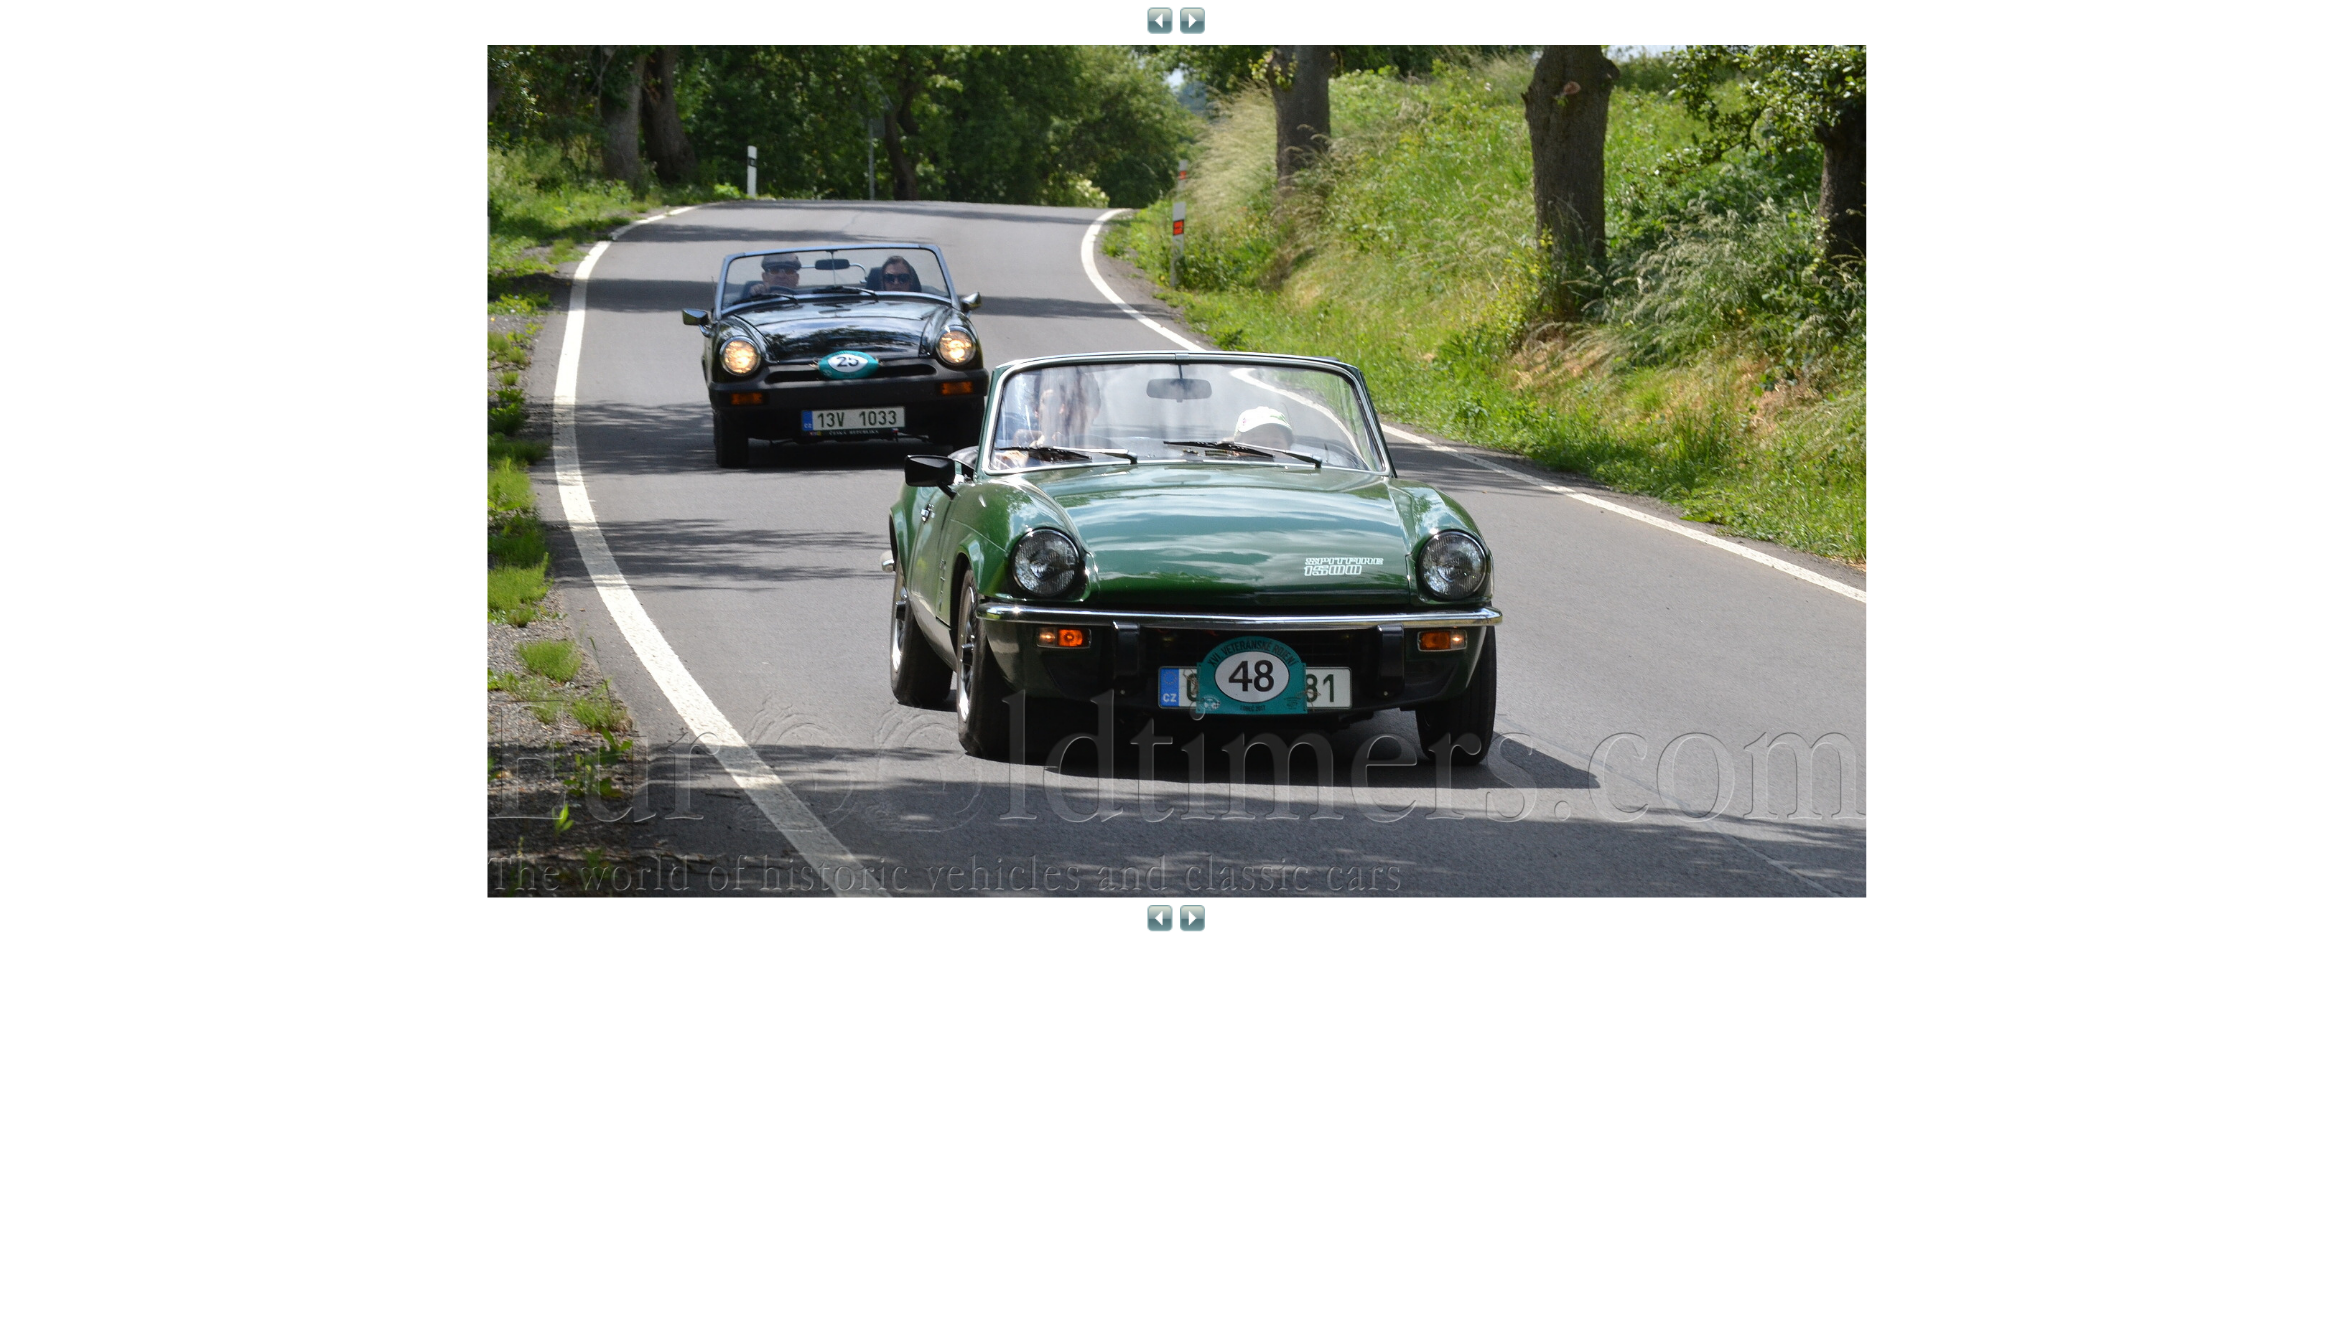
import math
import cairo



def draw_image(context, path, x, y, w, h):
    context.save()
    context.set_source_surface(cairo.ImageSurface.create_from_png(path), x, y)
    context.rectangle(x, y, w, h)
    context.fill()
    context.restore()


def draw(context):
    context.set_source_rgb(1, 1, 1)
    context.paint()
    draw_image(context, "images/1.png", 1147, 7, 26, 27)
    draw_image(context, "images/2.png", 1180, 7, 25, 27)
    draw_image(context, "images/3.png", 487, 45, 1380, 853)
    draw_image(context, "images/4.png", 1147, 905, 26, 27)
    draw_image(context, "images/5.png", 1180, 905, 25, 27)


surface = cairo.ImageSurface(cairo.Format.RGB24, 2352, 1333)
context = cairo.Context(surface)
options = cairo.FontOptions()
options.set_hint_metrics(cairo.HintMetrics.OFF)
options.set_hint_style(cairo.HintStyle.NONE)
context.set_font_options(options)
context.set_miter_limit(4)
draw(context)
surface.write_to_png("out.png")
